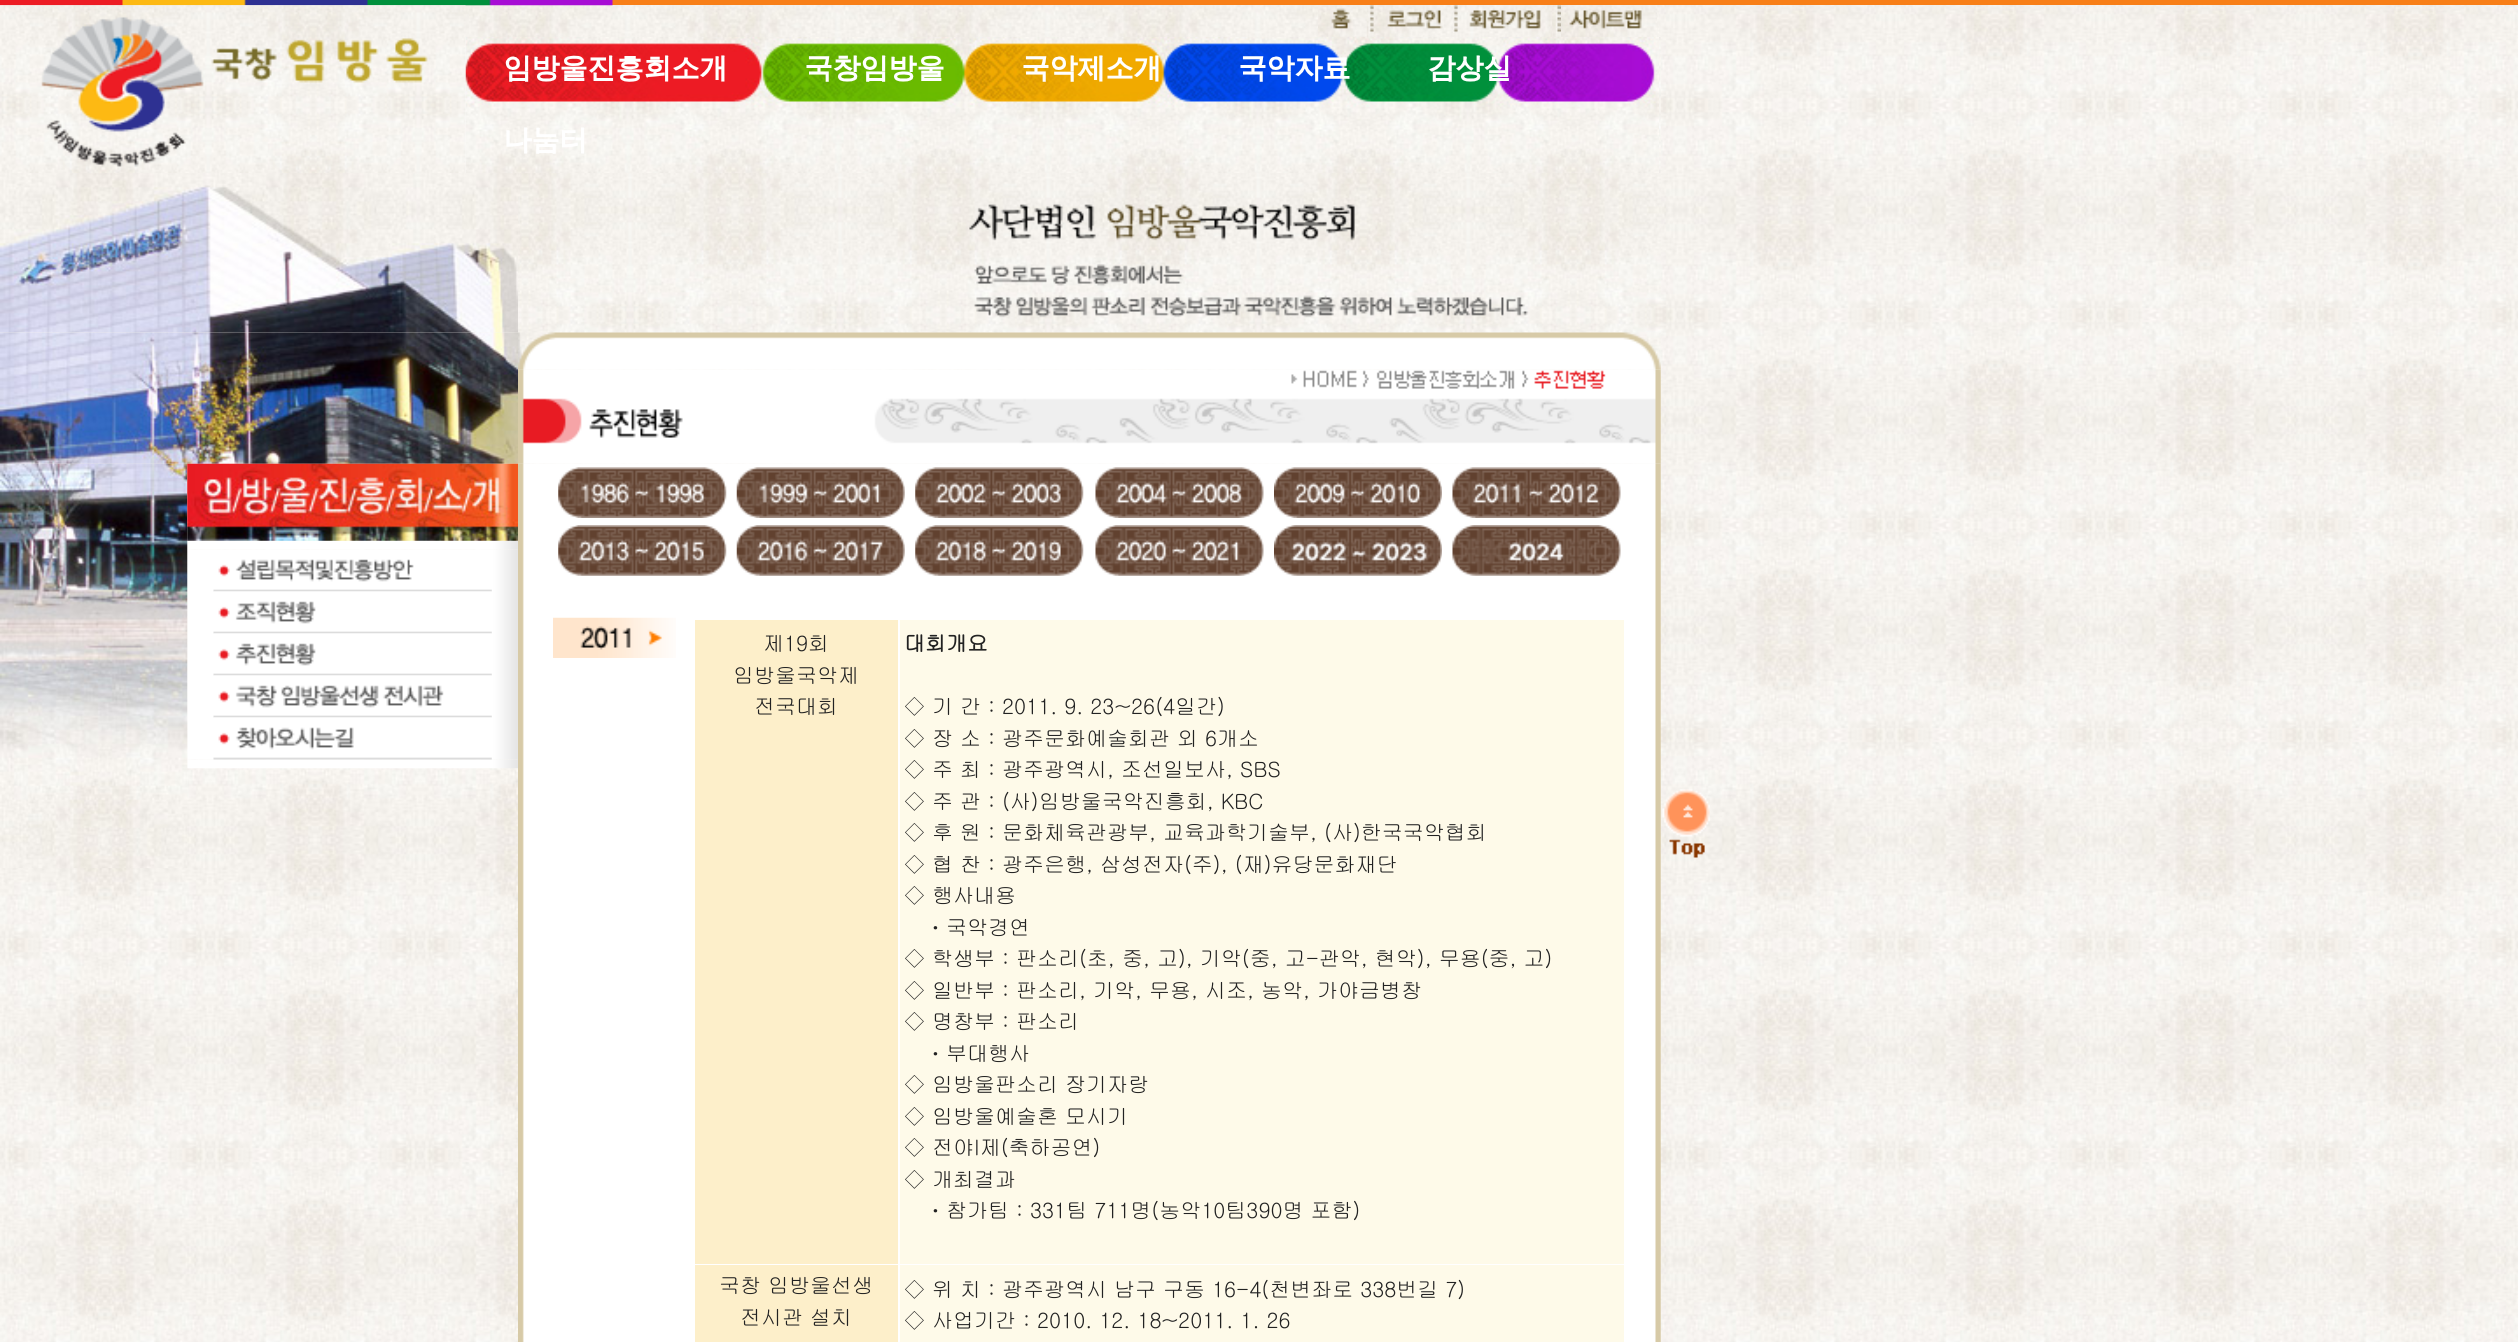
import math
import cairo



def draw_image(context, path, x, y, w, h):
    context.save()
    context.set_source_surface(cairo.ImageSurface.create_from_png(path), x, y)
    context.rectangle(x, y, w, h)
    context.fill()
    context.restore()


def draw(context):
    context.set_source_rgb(1, 1, 1)
    context.paint()
    draw_image(context, "images/1.png", 0, 5, 2518, 1337)
    context.set_source_rgb(248 / 255, 127 / 255, 24 / 255)
    context.rectangle(612, 0, 1906, 5)
    context.fill()
    draw_image(context, "images/4.png", 469, 5, 1190, 32)
    draw_image(context, "images/2.png", 0, 0, 613, 6)
    draw_image(context, "images/3.png", 0, 5, 466, 168)
    draw_image(context, "images/5.png", 1318, 5, 49, 32)
    draw_image(context, "images/6.png", 1368, 5, 6, 32)
    draw_image(context, "images/7.png", 1373, 5, 70, 27)
    draw_image(context, "images/8.png", 1453, 5, 5, 28)
    draw_image(context, "images/9.png", 1457, 5, 95, 32)
    draw_image(context, "images/10.png", 1555, 5, 6, 32)
    draw_image(context, "images/11.png", 1561, 5, 96, 32)
    draw_image(context, "images/12.png", 1659, 37, 2, 136)
    draw_image(context, "images/13.png", 465, 37, 1194, 136)
    draw_image(context, "images/14.png", 0, 173, 518, 160)
    draw_image(context, "images/15.png", 0, 332, 518, 132)
    draw_image(context, "images/18.png", 187, 540, 331, 10)
    draw_image(context, "images/19.png", 187, 549, 331, 211)
    draw_image(context, "images/25.png", 187, 759, 331, 10)
    draw_image(context, "images/16.png", 0, 463, 188, 405)
    draw_image(context, "images/17.png", 187, 463, 331, 78)
    draw_image(context, "images/20.png", 213, 559, 279, 33)
    draw_image(context, "images/21.png", 213, 591, 279, 43)
    draw_image(context, "images/22.png", 213, 633, 279, 43)
    draw_image(context, "images/23.png", 213, 675, 279, 43)
    draw_image(context, "images/24.png", 213, 717, 279, 43)
    draw_image(context, "images/26.png", 520, 173, 1141, 160)
    draw_image(context, "images/27.png", 518, 332, 1143, 38)
    draw_image(context, "images/29.png", 518, 463, 1143, 879)
    draw_image(context, "images/28.png", 518, 369, 1143, 95)
    draw_image(context, "images/30.png", 558, 467, 169, 51)
    draw_image(context, "images/31.png", 736, 467, 169, 51)
    draw_image(context, "images/32.png", 915, 467, 169, 51)
    draw_image(context, "images/33.png", 1095, 467, 169, 51)
    draw_image(context, "images/34.png", 1274, 467, 168, 51)
    draw_image(context, "images/35.png", 1452, 467, 169, 51)
    draw_image(context, "images/36.png", 558, 525, 169, 51)
    draw_image(context, "images/37.png", 736, 525, 169, 51)
    draw_image(context, "images/38.png", 915, 525, 169, 51)
    draw_image(context, "images/39.png", 1095, 525, 169, 51)
    draw_image(context, "images/40.png", 1274, 525, 168, 51)
    draw_image(context, "images/41.png", 1452, 525, 169, 51)
    draw_image(context, "images/42.png", 553, 617, 123, 41)
    context.set_source_rgb(253 / 255, 239 / 255, 202 / 255)
    context.rectangle(695, 620, 203, 644)
    context.fill()
    context.set_source_rgb(254 / 255, 250 / 255, 233 / 255)
    context.rectangle(900, 620, 724, 644)
    context.fill()
    context.set_source_rgb(253 / 255, 239 / 255, 202 / 255)
    context.rectangle(695, 1265, 203, 77)
    context.fill()
    context.set_source_rgb(254 / 255, 250 / 255, 233 / 255)
    context.rectangle(900, 1265, 724, 77)
    context.fill()
    draw_image(context, "images/43.png", 1662, 789, 48, 69)
    context.select_font_face("Gulim")
    context.set_font_size(21)
    context.set_source_rgb(34 / 255, 34 / 255, 34 / 255)
    context.move_to(763, 651)
    context.show_text("제19회")
    context.move_to(733, 683)
    context.show_text("임방울국악제")
    context.move_to(754, 714)
    context.show_text("전국대회")
    context.select_font_face("Gulim", cairo.FontSlant.NORMAL, cairo.FontWeight.BOLD)
    context.move_to(904, 651)
    context.show_text("대회개요")
    context.select_font_face("Gulim")
    context.move_to(904, 714)
    context.show_text("◇ 기 간 : 2011. 9. 23~26(4일간)")
    context.move_to(904, 746)
    context.show_text("◇ 장 소 : 광주문화예술회관 외 6개소")
    context.move_to(904, 777)
    context.show_text("◇ 주 최 : 광주광역시, 조선일보사, SBS")
    context.move_to(904, 809)
    context.show_text("◇ 주 관 : (사)임방울국악진흥회, KBC")
    context.move_to(904, 840)
    context.show_text("◇ 후 원 : 문화체육관광부, 교육과학기술부, (사)한국국악협회")
    context.move_to(904, 872)
    context.show_text("◇ 협 찬 : 광주은행, 삼성전자(주), (재)유당문화재단")
    context.move_to(904, 903)
    context.show_text("◇ 행사내용")
    context.move_to(925, 935)
    context.show_text("ㆍ국악경연")
    context.move_to(904, 966)
    context.show_text("◇ 학생부 : 판소리(초, 중, 고), 기악(중, 고-관악, 현악), 무용(중, 고)")
    context.move_to(904, 998)
    context.show_text("◇ 일반부 : 판소리, 기악, 무용, 시조, 농악, 가야금병창")
    context.move_to(904, 1029)
    context.show_text("◇ 명창부 : 판소리")
    context.move_to(925, 1061)
    context.show_text("ㆍ부대행사")
    context.move_to(904, 1092)
    context.show_text("◇ 임방울판소리 장기자랑")
    context.move_to(904, 1124)
    context.show_text("◇ 임방울예술혼 모시기")
    context.move_to(904, 1155)
    context.show_text("◇ 전야I제(축하공연)")
    context.move_to(904, 1187)
    context.show_text("◇ 개최결과")
    context.move_to(925, 1218)
    context.show_text("ㆍ참가팀 : 331팀 711명(농악10팀390명 포함)")
    context.move_to(719, 1293)
    context.show_text("국창 임방울선생")
    context.move_to(740, 1325)
    context.show_text("전시관 설치")
    context.move_to(904, 1297)
    context.show_text("◇ 위 치 : 광주광역시 남구 구동 16-4(천변좌로 338번길 7)")
    context.move_to(904, 1328)
    context.show_text("◇ 사업기간 : 2010. 12. 18~2011. 1. 26")


surface = cairo.ImageSurface(cairo.Format.RGB24, 2518, 1342)
context = cairo.Context(surface)
options = cairo.FontOptions()
options.set_hint_metrics(cairo.HintMetrics.OFF)
options.set_hint_style(cairo.HintStyle.NONE)
context.set_font_options(options)
context.set_miter_limit(4)
draw(context)
surface.write_to_png("out.png")
